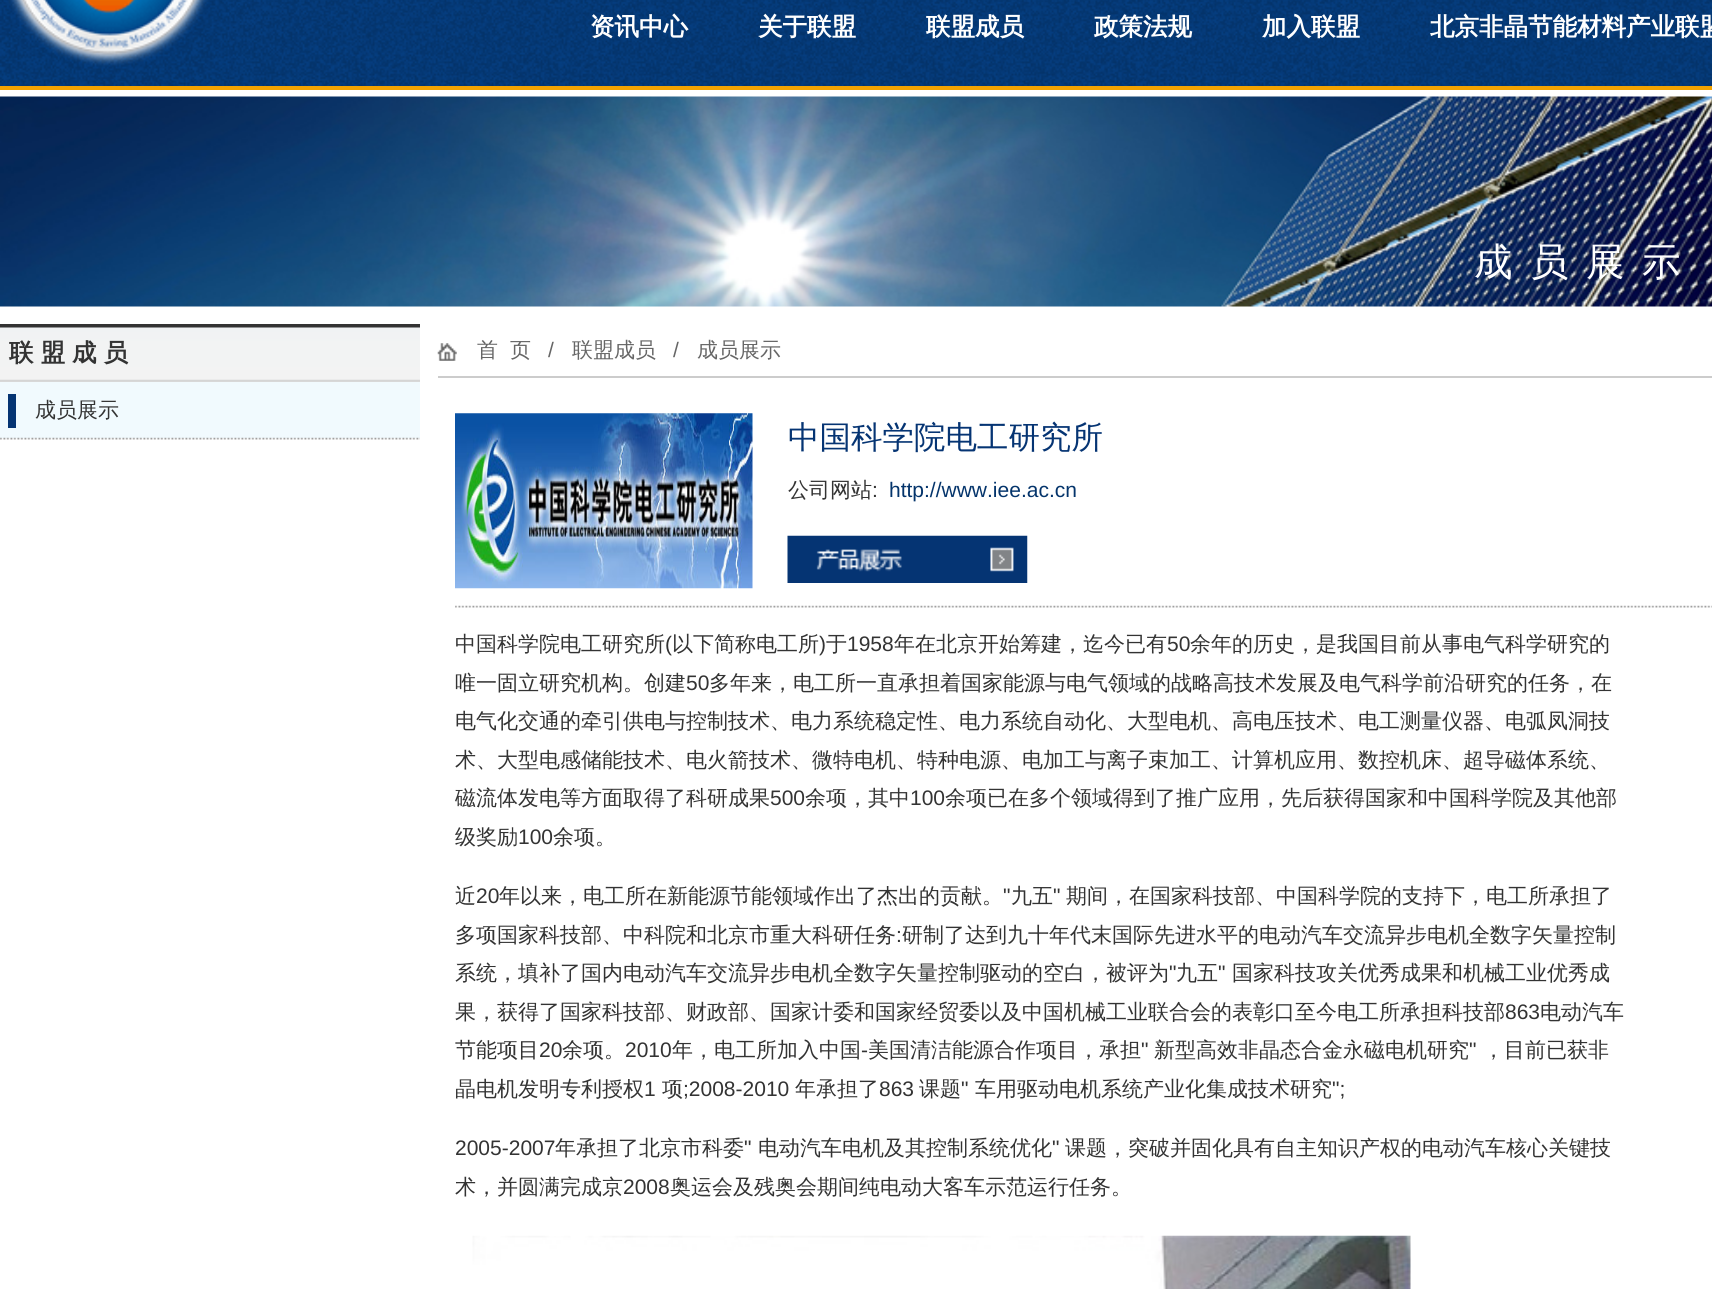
import math
import cairo



def draw_spaced(context, x, y, s, letter, word):
    context.move_to(x, y)
    for ch in s:
        context.show_text(ch)
        context.rel_move_to(letter + word * (ch == ' '), 0)


def draw_image(context, path, x, y, w, h):
    context.save()
    context.set_source_surface(cairo.ImageSurface.create_from_png(path), x, y)
    context.rectangle(x, y, w, h)
    context.fill()
    context.restore()


def draw(context):
    context.set_source_rgb(1, 1, 1)
    context.paint()
    draw_image(context, "images/1.png", 229, 0, 1483, 86)
    context.set_source_rgb(244 / 255, 163 / 255, 0)
    context.rectangle(0, 86, 1712, 4)
    context.fill()
    draw_image(context, "images/2.png", 0, 0, 230, 86)
    draw_image(context, "images/3.png", 0, 96, 1712, 211)
    draw_image(context, "images/4.png", 0, 324, 420, 58)
    context.set_source_rgb(241 / 255, 250 / 255, 254 / 255)
    context.rectangle(0, 382, 420, 56)
    context.fill()
    context.set_source_rgb(5 / 255, 52 / 255, 115 / 255)
    context.rectangle(8, 394, 8, 34)
    context.fill()
    draw_image(context, "images/5.png", 0, 437, 420, 3)
    context.set_source_rgb(204 / 255, 204 / 255, 204 / 255)
    context.rectangle(438, 376, 1274, 2)
    context.fill()
    draw_image(context, "images/6.png", 437, 343, 20, 18)
    draw_image(context, "images/7.png", 455, 413, 298, 176)
    draw_image(context, "images/8.png", 787, 535, 241, 48)
    draw_image(context, "images/9.png", 455, 605, 1257, 3)
    draw_image(context, "images/10.png", 472, 1235, 939, 54)
    context.select_font_face("WenQuanYi Zen Hei", cairo.FontSlant.NORMAL, cairo.FontWeight.BOLD)
    context.set_font_size(24.5)
    context.set_source_rgb(1, 1, 1)
    context.move_to(590, 35)
    context.show_text("资讯中心")
    context.move_to(758, 35)
    context.show_text("关于联盟")
    context.move_to(926, 35)
    context.show_text("联盟成员")
    context.move_to(1094, 35)
    context.show_text("政策法规")
    context.move_to(1262, 35)
    context.show_text("加入联盟")
    context.move_to(1430, 35)
    context.show_text("北京非晶节能材料产业联盟")
    context.select_font_face("WenQuanYi Zen Hei Medium")
    context.set_font_size(38.5)
    draw_spaced(context, 1474, 275, "成员展示", 17.5, 0)
    context.select_font_face("WenQuanYi Zen Hei", cairo.FontSlant.NORMAL, cairo.FontWeight.BOLD)
    context.set_font_size(24.5)
    context.set_source_rgb(51 / 255, 51 / 255, 51 / 255)
    draw_spaced(context, 9, 361, "联盟成员", 7, 0)
    context.select_font_face("WenQuanYi Zen Hei Medium")
    context.set_font_size(21)
    context.move_to(35, 417)
    context.show_text("成员展示")
    context.set_source_rgb(102 / 255, 102 / 255, 102 / 255)
    context.move_to(477, 357)
    context.show_text("首")
    context.move_to(510, 357)
    context.show_text("页")
    context.select_font_face("Liberation Sans")
    context.move_to(548, 357)
    context.show_text("/")
    context.select_font_face("WenQuanYi Zen Hei Medium")
    context.move_to(572, 357)
    context.show_text("联盟成员")
    context.select_font_face("Liberation Sans")
    context.move_to(673, 357)
    context.show_text("/")
    context.select_font_face("WenQuanYi Zen Hei Medium")
    context.move_to(697, 357)
    context.show_text("成员展示")
    context.set_font_size(31.5)
    context.set_source_rgb(5 / 255, 52 / 255, 115 / 255)
    context.move_to(788, 448)
    context.show_text("中国科学院电工研究所")
    context.set_font_size(21)
    context.set_source_rgb(51 / 255, 51 / 255, 51 / 255)
    context.move_to(788, 497)
    context.show_text("公司网站")
    context.select_font_face("Liberation Sans")
    context.move_to(872, 497)
    context.show_text(":")
    context.set_source_rgb(4 / 255, 52 / 255, 107 / 255)
    context.move_to(889, 497)
    context.show_text("http://www.iee.ac.cn")
    context.select_font_face("WenQuanYi Zen Hei Medium")
    context.set_source_rgb(51 / 255, 51 / 255, 51 / 255)
    context.move_to(455, 651)
    context.show_text("中国科学院电工研究所")
    context.select_font_face("Liberation Sans")
    context.move_to(665, 651)
    context.show_text("(")
    context.select_font_face("WenQuanYi Zen Hei Medium")
    context.move_to(672, 651)
    context.show_text("以下简称电工所")
    context.select_font_face("Liberation Sans")
    context.move_to(819, 651)
    context.show_text(")")
    context.select_font_face("WenQuanYi Zen Hei Medium")
    context.move_to(826, 651)
    context.show_text("于")
    context.select_font_face("Liberation Sans")
    context.move_to(847, 651)
    context.show_text("1958")
    context.select_font_face("WenQuanYi Zen Hei Medium")
    context.move_to(894, 651)
    context.show_text("年在北京开始筹建，迄今已有")
    context.select_font_face("Liberation Sans")
    context.move_to(1167, 651)
    context.show_text("50")
    context.select_font_face("WenQuanYi Zen Hei Medium")
    context.move_to(1190, 651)
    context.show_text("余年的历史，是我国目前从事电气科学研究的")
    context.move_to(455, 690)
    context.show_text("唯一固立研究机构。创建")
    context.select_font_face("Liberation Sans")
    context.move_to(686, 690)
    context.show_text("50")
    context.select_font_face("WenQuanYi Zen Hei Medium")
    context.move_to(709, 690)
    context.show_text("多年来，电工所一直承担着国家能源与电气领域的战略高技术发展及电气科学前沿研究的任务，在")
    context.move_to(455, 728)
    context.show_text("电气化交通的牵引供电与控制技术、电力系统稳定性、电力系统自动化、大型电机、高电压技术、电工测量仪器、电弧凤洞技")
    context.move_to(455, 767)
    context.show_text("术、大型电感储能技术、电火箭技术、微特电机、特种电源、电加工与离子束加工、计算机应用、数控机床、超导磁体系统、")
    context.move_to(455, 805)
    context.show_text("磁流体发电等方面取得了科研成果")
    context.select_font_face("Liberation Sans")
    context.move_to(770, 805)
    context.show_text("500")
    context.select_font_face("WenQuanYi Zen Hei Medium")
    context.move_to(805, 805)
    context.show_text("余项，其中")
    context.select_font_face("Liberation Sans")
    context.move_to(910, 805)
    context.show_text("100")
    context.select_font_face("WenQuanYi Zen Hei Medium")
    context.move_to(945, 805)
    context.show_text("余项已在多个领域得到了推广应用，先后获得国家和中国科学院及其他部")
    context.move_to(455, 844)
    context.show_text("级奖励")
    context.select_font_face("Liberation Sans")
    context.move_to(518, 844)
    context.show_text("100")
    context.select_font_face("WenQuanYi Zen Hei Medium")
    context.move_to(553, 844)
    context.show_text("余项。")
    context.move_to(455, 903)
    context.show_text("近")
    context.select_font_face("Liberation Sans")
    context.move_to(476, 903)
    context.show_text("20")
    context.select_font_face("WenQuanYi Zen Hei Medium")
    context.move_to(499, 903)
    context.show_text("年以来，电工所在新能源节能领域作出了杰出的贡献。")
    context.select_font_face("Liberation Sans")
    context.move_to(1003, 903)
    context.show_text("\"")
    context.select_font_face("WenQuanYi Zen Hei Medium")
    context.move_to(1011, 903)
    context.show_text("九五")
    context.select_font_face("Liberation Sans")
    context.move_to(1053, 903)
    context.show_text("\"")
    context.select_font_face("WenQuanYi Zen Hei Medium")
    context.move_to(1066, 903)
    context.show_text("期间，在国家科技部、中国科学院的支持下，电工所承担了")
    context.move_to(455, 942)
    context.show_text("多项国家科技部、中科院和北京市重大科研任务")
    context.select_font_face("Liberation Sans")
    context.move_to(896, 942)
    context.show_text(":")
    context.select_font_face("WenQuanYi Zen Hei Medium")
    context.move_to(902, 942)
    context.show_text("研制了达到九十年代末国际先进水平的电动汽车交流异步电机全数字矢量控制")
    context.move_to(455, 980)
    context.show_text("系统，填补了国内电动汽车交流异步电机全数字矢量控制驱动的空白，被评为")
    context.select_font_face("Liberation Sans")
    context.move_to(1169, 980)
    context.show_text("\"")
    context.select_font_face("WenQuanYi Zen Hei Medium")
    context.move_to(1176, 980)
    context.show_text("九五")
    context.select_font_face("Liberation Sans")
    context.move_to(1218, 980)
    context.show_text("\"")
    context.select_font_face("WenQuanYi Zen Hei Medium")
    context.move_to(1232, 980)
    context.show_text("国家科技攻关优秀成果和机械工业优秀成")
    context.move_to(455, 1019)
    context.show_text("果，获得了国家科技部、财政部、国家计委和国家经贸委以及中国机械工业联合会的表彰口至今电工所承担科技部")
    context.select_font_face("Liberation Sans")
    context.move_to(1505, 1019)
    context.show_text("863")
    context.select_font_face("WenQuanYi Zen Hei Medium")
    context.move_to(1540, 1019)
    context.show_text("电动汽车")
    context.move_to(455, 1057)
    context.show_text("节能项目")
    context.select_font_face("Liberation Sans")
    context.move_to(539, 1057)
    context.show_text("20")
    context.select_font_face("WenQuanYi Zen Hei Medium")
    context.move_to(562, 1057)
    context.show_text("余项。")
    context.select_font_face("Liberation Sans")
    context.move_to(625, 1057)
    context.show_text("2010")
    context.select_font_face("WenQuanYi Zen Hei Medium")
    context.move_to(672, 1057)
    context.show_text("年，电工所加入中国")
    context.move_to(868, 1057)
    context.show_text("美国清洁能源合作项目，承担")
    context.select_font_face("Liberation Sans")
    context.move_to(1141, 1057)
    context.show_text("\"")
    context.select_font_face("WenQuanYi Zen Hei Medium")
    context.move_to(1154, 1057)
    context.show_text("新型高效非晶态合金永磁电机研究")
    context.select_font_face("Liberation Sans")
    context.move_to(1469, 1057)
    context.show_text("\"")
    context.select_font_face("WenQuanYi Zen Hei Medium")
    context.move_to(1483, 1057)
    context.show_text("，目前已获非")
    context.select_font_face("Liberation Sans")
    context.move_to(861, 1057)
    context.show_text("-")
    context.select_font_face("WenQuanYi Zen Hei Medium")
    context.move_to(455, 1096)
    context.show_text("晶电机发明专利授权")
    context.select_font_face("Liberation Sans")
    context.move_to(644, 1096)
    context.show_text("1")
    context.select_font_face("WenQuanYi Zen Hei Medium")
    context.move_to(662, 1096)
    context.show_text("项")
    context.select_font_face("Liberation Sans")
    context.move_to(683, 1096)
    context.show_text(";2008-2010")
    context.select_font_face("WenQuanYi Zen Hei Medium")
    context.move_to(795, 1096)
    context.show_text("年承担了")
    context.select_font_face("Liberation Sans")
    context.move_to(879, 1096)
    context.show_text("863")
    context.select_font_face("WenQuanYi Zen Hei Medium")
    context.move_to(919, 1096)
    context.show_text("课题")
    context.select_font_face("Liberation Sans")
    context.move_to(961, 1096)
    context.show_text("\"")
    context.select_font_face("WenQuanYi Zen Hei Medium")
    context.move_to(975, 1096)
    context.show_text("车用驱动电机系统产业化集成技术研究")
    context.select_font_face("Liberation Sans")
    context.move_to(1332, 1096)
    context.show_text("\";")
    context.move_to(455, 1155)
    context.show_text("2005-2007")
    context.select_font_face("WenQuanYi Zen Hei Medium")
    context.move_to(555, 1155)
    context.show_text("年承担了北京市科委")
    context.select_font_face("Liberation Sans")
    context.move_to(744, 1155)
    context.show_text("\"")
    context.select_font_face("WenQuanYi Zen Hei Medium")
    context.move_to(758, 1155)
    context.show_text("电动汽车电机及其控制系统优化")
    context.select_font_face("Liberation Sans")
    context.move_to(1052, 1155)
    context.show_text("\"")
    context.select_font_face("WenQuanYi Zen Hei Medium")
    context.move_to(1065, 1155)
    context.show_text("课题，突破并固化具有自主知识产权的电动汽车核心关键技")
    context.move_to(455, 1194)
    context.show_text("术，并圆满完成京")
    context.select_font_face("Liberation Sans")
    context.move_to(623, 1194)
    context.show_text("2008")
    context.select_font_face("WenQuanYi Zen Hei Medium")
    context.move_to(670, 1194)
    context.show_text("奥运会及残奥会期间纯电动大客车示范运行任务。")


surface = cairo.ImageSurface(cairo.Format.RGB24, 1712, 1289)
context = cairo.Context(surface)
options = cairo.FontOptions()
options.set_hint_metrics(cairo.HintMetrics.OFF)
options.set_hint_style(cairo.HintStyle.NONE)
context.set_font_options(options)
context.set_miter_limit(4)
draw(context)
surface.write_to_png("out.png")
